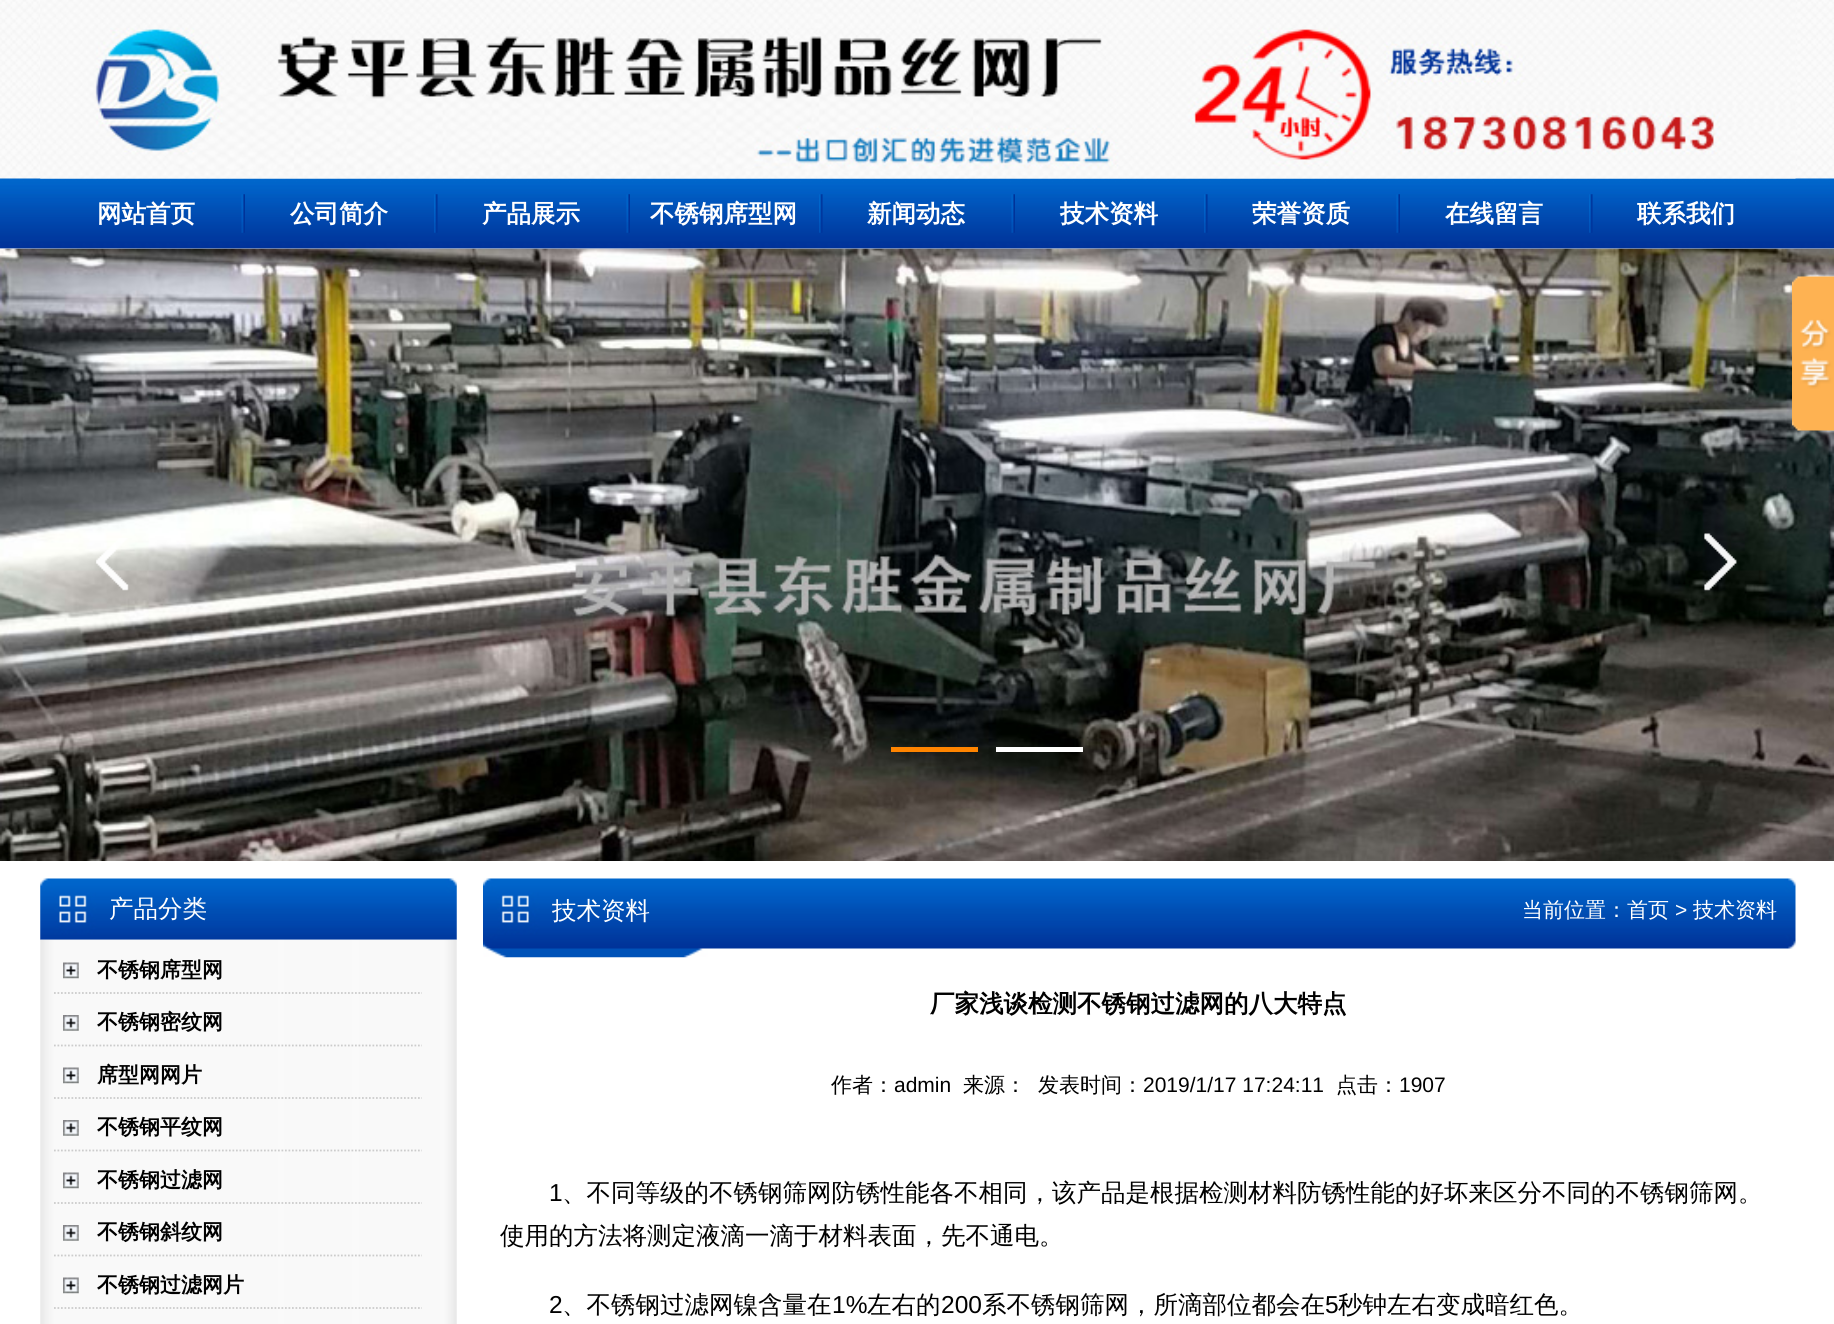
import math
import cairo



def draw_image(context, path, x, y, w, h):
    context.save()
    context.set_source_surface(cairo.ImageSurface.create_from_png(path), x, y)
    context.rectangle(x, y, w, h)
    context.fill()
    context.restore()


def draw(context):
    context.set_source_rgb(1, 1, 1)
    context.paint()
    draw_image(context, "images/1.png", 0, 0, 1834, 249)
    draw_image(context, "images/2.png", 40, 0, 1756, 179)
    draw_image(context, "images/3.png", 241, 194, 4, 39)
    draw_image(context, "images/4.png", 434, 194, 4, 39)
    draw_image(context, "images/3.png", 626, 194, 4, 39)
    draw_image(context, "images/4.png", 819, 194, 4, 39)
    draw_image(context, "images/3.png", 1011, 194, 4, 39)
    draw_image(context, "images/4.png", 1204, 194, 4, 39)
    draw_image(context, "images/3.png", 1396, 194, 4, 39)
    draw_image(context, "images/4.png", 1589, 194, 4, 39)
    draw_image(context, "images/5.png", 0, 248, 1834, 613)
    draw_image(context, "images/6.png", 96, 538, 33, 53)
    draw_image(context, "images/7.png", 1704, 533, 33, 58)
    draw_image(context, "images/8.png", 96, 550, 33, 41)
    draw_image(context, "images/9.png", 1704, 533, 33, 58)
    context.set_source_rgb(1, 132 / 255, 0)
    context.rectangle(891, 747, 87, 5)
    context.fill()
    context.set_source_rgb(1, 1, 1)
    context.rectangle(996, 747, 87, 5)
    context.fill()
    draw_image(context, "images/10.png", 1792, 276, 42, 155)
    draw_image(context, "images/11.png", 40, 878, 417, 62)
    draw_image(context, "images/12.png", 40, 939, 417, 385)
    draw_image(context, "images/13.png", 63, 962, 16, 17)
    context.new_path()
    context.move_to(54, 993)
    context.line_to(422, 993)
    context.set_source_rgb(204 / 255, 204 / 255, 204 / 255)
    context.set_line_width(1.8)
    context.set_dash([1.75, 1.75])
    context.stroke()
    draw_image(context, "images/14.png", 63, 1015, 16, 16)
    context.new_path()
    context.move_to(54, 1045.5)
    context.line_to(422, 1045.5)
    context.stroke()
    draw_image(context, "images/13.png", 63, 1067, 16, 17)
    context.new_path()
    context.move_to(54, 1098)
    context.line_to(422, 1098)
    context.stroke()
    draw_image(context, "images/14.png", 63, 1120, 16, 16)
    context.new_path()
    context.move_to(54, 1150.5)
    context.line_to(422, 1150.5)
    context.stroke()
    draw_image(context, "images/13.png", 63, 1172, 16, 17)
    context.new_path()
    context.move_to(54, 1203)
    context.line_to(422, 1203)
    context.stroke()
    draw_image(context, "images/14.png", 63, 1225, 16, 16)
    context.new_path()
    context.move_to(54, 1255.5)
    context.line_to(422, 1255.5)
    context.stroke()
    draw_image(context, "images/13.png", 63, 1277, 16, 17)
    context.new_path()
    context.move_to(54, 1308)
    context.line_to(422, 1308)
    context.stroke()
    draw_image(context, "images/15.png", 483, 878, 1313, 80)
    context.select_font_face("WenQuanYi Zen Hei", cairo.FontSlant.NORMAL, cairo.FontWeight.BOLD)
    context.set_font_size(24.5)
    context.set_source_rgb(1, 1, 1)
    context.move_to(97, 222)
    context.show_text("网站首页")
    context.move_to(290, 222)
    context.show_text("公司简介")
    context.move_to(482, 222)
    context.show_text("产品展示")
    context.move_to(650, 222)
    context.show_text("不锈钢席型网")
    context.move_to(867, 222)
    context.show_text("新闻动态")
    context.move_to(1060, 222)
    context.show_text("技术资料")
    context.move_to(1252, 222)
    context.show_text("荣誉资质")
    context.move_to(1445, 222)
    context.show_text("在线留言")
    context.move_to(1637, 222)
    context.show_text("联系我们")
    context.select_font_face("WenQuanYi Zen Hei Medium")
    context.move_to(109, 917)
    context.show_text("产品分类")
    context.select_font_face("WenQuanYi Zen Hei", cairo.FontSlant.NORMAL, cairo.FontWeight.BOLD)
    context.set_font_size(21)
    context.set_source_rgb(0, 0, 0)
    context.move_to(97, 977)
    context.show_text("不锈钢席型网")
    context.move_to(97, 1029)
    context.show_text("不锈钢密纹网")
    context.move_to(97, 1082)
    context.show_text("席型网网片")
    context.move_to(97, 1134)
    context.show_text("不锈钢平纹网")
    context.move_to(97, 1187)
    context.show_text("不锈钢过滤网")
    context.move_to(97, 1239)
    context.show_text("不锈钢斜纹网")
    context.move_to(97, 1292)
    context.show_text("不锈钢过滤网片")
    context.select_font_face("WenQuanYi Zen Hei Medium")
    context.set_font_size(24.5)
    context.set_source_rgb(1, 1, 1)
    context.move_to(552, 919)
    context.show_text("技术资料")
    context.set_font_size(21)
    context.move_to(1522, 917)
    context.show_text("当前位置：首页")
    context.select_font_face("Liberation Sans")
    context.move_to(1675, 917)
    context.show_text(">")
    context.select_font_face("WenQuanYi Zen Hei Medium")
    context.move_to(1693, 917)
    context.show_text("技术资料")
    context.select_font_face("WenQuanYi Zen Hei", cairo.FontSlant.NORMAL, cairo.FontWeight.BOLD)
    context.set_font_size(24.5)
    context.set_source_rgb(0, 0, 0)
    context.move_to(930, 1012)
    context.show_text("厂家浅谈检测不锈钢过滤网的八大特点")
    context.select_font_face("WenQuanYi Zen Hei Medium")
    context.set_font_size(21)
    context.move_to(831, 1092)
    context.show_text("作者：")
    context.select_font_face("Liberation Sans")
    context.move_to(894, 1092)
    context.show_text("admin")
    context.select_font_face("WenQuanYi Zen Hei Medium")
    context.move_to(963, 1092)
    context.show_text("来源：")
    context.move_to(1038, 1092)
    context.show_text("发表时间：")
    context.select_font_face("Liberation Sans")
    context.move_to(1143, 1092)
    context.show_text("2019/1/17 17:24:11")
    context.select_font_face("WenQuanYi Zen Hei Medium")
    context.move_to(1336, 1092)
    context.show_text("点击：")
    context.select_font_face("Liberation Sans")
    context.move_to(1399, 1092)
    context.show_text("1907")
    context.set_font_size(24.5)
    context.move_to(549, 1201)
    context.show_text("1")
    context.select_font_face("WenQuanYi Zen Hei Medium")
    context.move_to(562, 1201)
    context.show_text("、不同等级的不锈钢筛网防锈性能各不相同，该产品是根据检测材料防锈性能的好坏来区分不同的不锈钢筛网。")
    context.move_to(500, 1244)
    context.show_text("使用的方法将测定液滴一滴于材料表面，先不通电。")
    context.select_font_face("Liberation Sans")
    context.move_to(549, 1313)
    context.show_text("2")
    context.select_font_face("WenQuanYi Zen Hei Medium")
    context.move_to(562, 1313)
    context.show_text("、不锈钢过滤网镍含量在")
    context.select_font_face("Liberation Sans")
    context.move_to(832, 1313)
    context.show_text("1%")
    context.select_font_face("WenQuanYi Zen Hei Medium")
    context.move_to(867, 1313)
    context.show_text("左右的")
    context.select_font_face("Liberation Sans")
    context.move_to(941, 1313)
    context.show_text("200")
    context.select_font_face("WenQuanYi Zen Hei Medium")
    context.move_to(982, 1313)
    context.show_text("系不锈钢筛网，所滴部位都会在")
    context.select_font_face("Liberation Sans")
    context.move_to(1325, 1313)
    context.show_text("5")
    context.select_font_face("WenQuanYi Zen Hei Medium")
    context.move_to(1338, 1313)
    context.show_text("秒钟左右变成暗红色。")


surface = cairo.ImageSurface(cairo.Format.RGB24, 1834, 1324)
context = cairo.Context(surface)
options = cairo.FontOptions()
options.set_hint_metrics(cairo.HintMetrics.OFF)
options.set_hint_style(cairo.HintStyle.NONE)
context.set_font_options(options)
context.set_miter_limit(4)
draw(context)
surface.write_to_png("out.png")
